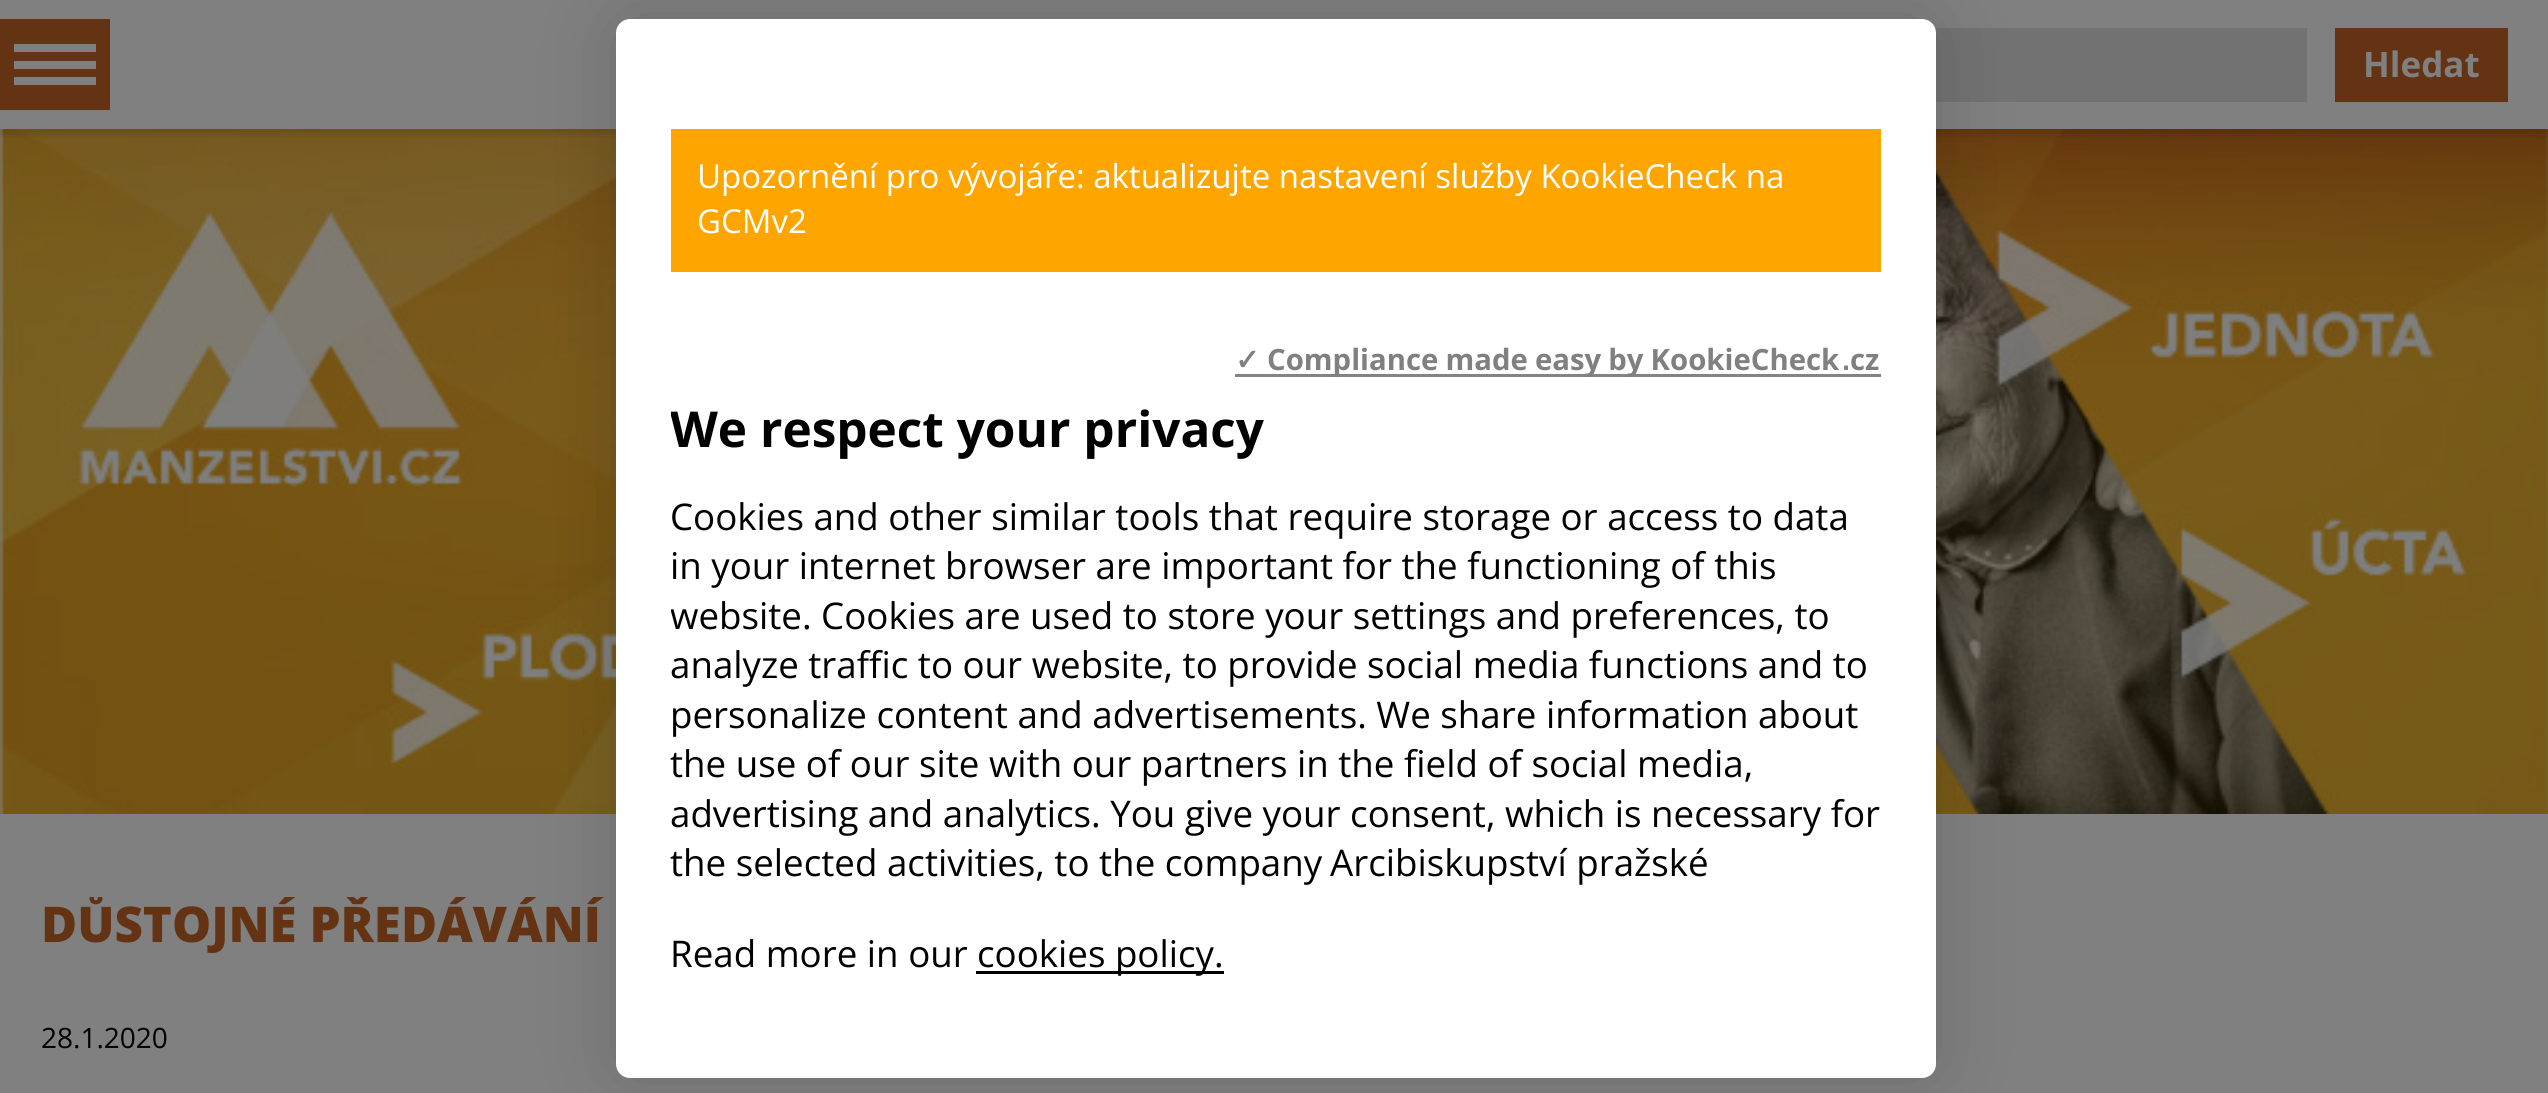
import math
import cairo



def draw_spaced(context, x, y, s, letter, word):
    context.move_to(x, y)
    for ch in s:
        context.show_text(ch)
        context.rel_move_to(letter + word * (ch == ' '), 0)


def rounded_rect(context, x, y, w, h, r):
    context.new_sub_path()
    for i, (u, v) in enumerate([(x + w - r, y + h - r), (x + r, y + h - r), (x + r, y + r), (x + w - r, y + r)]):
        context.arc(u, v, r, i * math.pi / 2, (i + 1) * math.pi / 2)
    context.close_path()


def draw_shadow(context, x, y, w, h, r, blur, alpha):
    context.push_group_with_content(cairo.Content.ALPHA)
    context.set_operator(cairo.Operator.SOURCE)
    for i in range(15, -16, -2):
        e = blur * i / 6
        if min(w, h) + 2 * e > 0:
            context.set_source_rgba(0, 0, 0, alpha * math.erfc((i - 1) / 8.5) / 2)
            rounded_rect(context, x - e, y - e, w + 2 * e, h + 2 * e, max(0, min(r + e + blur * .6, min(w, h) / 2 + e)))
            context.fill()
    context.mask(context.pop_group())


def draw_image(context, path, x, y, w, h):
    context.save()
    context.set_source_surface(cairo.ImageSurface.create_from_png(path), x, y)
    context.rectangle(x, y, w, h)
    context.fill()
    context.restore()


def draw(context):
    context.set_source_rgb(1, 1, 1)
    context.paint()
    context.set_source_rgb(128 / 255, 128 / 255, 128 / 255)
    context.rectangle(0, 0, 2548, 129)
    context.fill()
    draw_image(context, "images/1.png", 0, 129, 2548, 685)
    context.save()
    context.rectangle(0, 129, 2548, 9)
    context.clip()
    context.set_source_rgb(0, 0, 0)
    draw_shadow(context, 0, 6, 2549, 129, 0, 3, 0.1)
    context.restore()
    context.set_source_rgb(114 / 255, 114 / 255, 115 / 255)
    context.rectangle(1935, 28, 372, 74)
    context.fill()
    context.set_source_rgb(100 / 255, 51 / 255, 20 / 255)
    context.rectangle(2335, 28, 173, 74)
    context.fill()
    context.set_source_rgb(128 / 255, 128 / 255, 128 / 255)
    context.rectangle(0, 814, 2548, 279)
    context.fill()
    context.set_source_rgb(100 / 255, 51 / 255, 20 / 255)
    context.rectangle(0, 19, 110, 91)
    context.fill()
    context.set_source_rgb(128 / 255, 128 / 255, 128 / 255)
    context.rectangle(14, 44, 82, 8)
    context.fill()
    context.rectangle(14, 61, 82, 8)
    context.fill()
    context.rectangle(14, 77, 82, 8)
    context.fill()
    context.set_source_rgb(0, 0, 0)
    draw_shadow(context, 616, 19, 1320, 1059, 14, 41, 0.15)
    context.set_source_rgb(1, 1, 1)
    rounded_rect(context, 616, 19, 1320, 1059, 14)
    context.fill()
    context.set_source_rgb(1, 165 / 255, 0)
    context.rectangle(671, 129, 1210, 143)
    context.fill()
    context.set_source_rgb(131 / 255, 131 / 255, 131 / 255)
    context.rectangle(1235, 374, 646, 3)
    context.fill()
    context.set_source_rgb(0, 0, 0)
    context.rectangle(976, 971, 248, 3)
    context.fill()
    context.select_font_face("Open Sans", cairo.FontSlant.NORMAL, cairo.FontWeight.BOLD)
    context.set_font_size(35)
    context.set_source_rgb(128 / 255, 128 / 255, 128 / 255)
    context.move_to(2363, 77)
    context.show_text("Hledat")
    context.save()
    context.rectangle(41, 897, 2467, 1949)
    context.clip()
    context.select_font_face("Open Sans ExtraBold")
    context.set_font_size(49.25)
    context.set_source_rgb(100 / 255, 51 / 255, 20 / 255)
    context.move_to(41, 942)
    context.show_text("DŮSTOJNÉ PŘEDÁVÁNÍ")
    context.restore()
    context.select_font_face("Open Sans")
    context.set_font_size(28)
    context.set_source_rgb(0, 0, 0)
    context.move_to(41, 1048)
    context.show_text("28.1.2020")
    context.set_font_size(33)
    context.set_source_rgb(1, 1, 1)
    context.move_to(697, 188)
    context.show_text("Upozornění pro vývojáře: aktualizujte nastavení služby KookieCheck na")
    context.move_to(697, 233)
    context.show_text("GCMv2")
    context.select_font_face("DejaVu Sans", cairo.FontSlant.NORMAL, cairo.FontWeight.BOLD)
    context.set_font_size(29.3)
    context.set_source_rgb(128 / 255, 128 / 255, 128 / 255)
    context.move_to(1235, 370)
    context.show_text("✓")
    context.select_font_face("Open Sans", cairo.FontSlant.NORMAL, cairo.FontWeight.BOLD)
    draw_spaced(context, 1267, 370, "Compliance made easy by KookieCheck", 0, -0.5)
    context.select_font_face("DejaVu Sans", cairo.FontSlant.NORMAL, cairo.FontWeight.BOLD)
    context.move_to(1841, 370)
    context.show_text(".")
    context.select_font_face("Open Sans", cairo.FontSlant.NORMAL, cairo.FontWeight.BOLD)
    context.move_to(1850, 370)
    context.show_text("cz")
    context.save()
    context.rectangle(671, 407, 1265, 616)
    context.clip()
    context.set_font_size(49.5)
    context.set_source_rgb(0, 0, 0)
    context.move_to(670, 447)
    context.show_text("We respect your privacy")
    context.restore()
    context.select_font_face("Open Sans")
    context.set_font_size(36.7)
    context.set_source_rgb(0, 0, 0)
    context.move_to(670, 530)
    context.show_text("Cookies and other similar tools that require storage or access to data")
    context.move_to(670, 579)
    context.show_text("in your internet browser are important for the functioning of this")
    context.save()
    context.rectangle(671, 407, 1265, 616)
    context.clip()
    context.move_to(670, 629)
    context.show_text("website. Cookies are used to store your settings and preferences, to")
    context.restore()
    context.move_to(670, 678)
    context.show_text("analyze traffic to our website, to provide social media functions and to")
    context.move_to(670, 728)
    context.show_text("personalize content and advertisements. We share information about")
    context.move_to(670, 777)
    context.show_text("the use of our site with our partners in the field of social media,")
    context.move_to(670, 827)
    context.show_text("advertising and analytics. You give your consent, which is necessary for")
    context.move_to(670, 876)
    context.show_text("the selected activities, to the company")
    context.move_to(1330, 876)
    context.show_text("Arcibiskupství pražské")
    context.move_to(670, 967)
    context.show_text("Read more in our")
    context.move_to(977, 967)
    context.show_text("cookies policy.")


surface = cairo.ImageSurface(cairo.Format.RGB24, 2548, 1093)
context = cairo.Context(surface)
options = cairo.FontOptions()
options.set_hint_metrics(cairo.HintMetrics.OFF)
options.set_hint_style(cairo.HintStyle.NONE)
context.set_font_options(options)
context.set_miter_limit(4)
draw(context)
surface.write_to_png("out.png")
